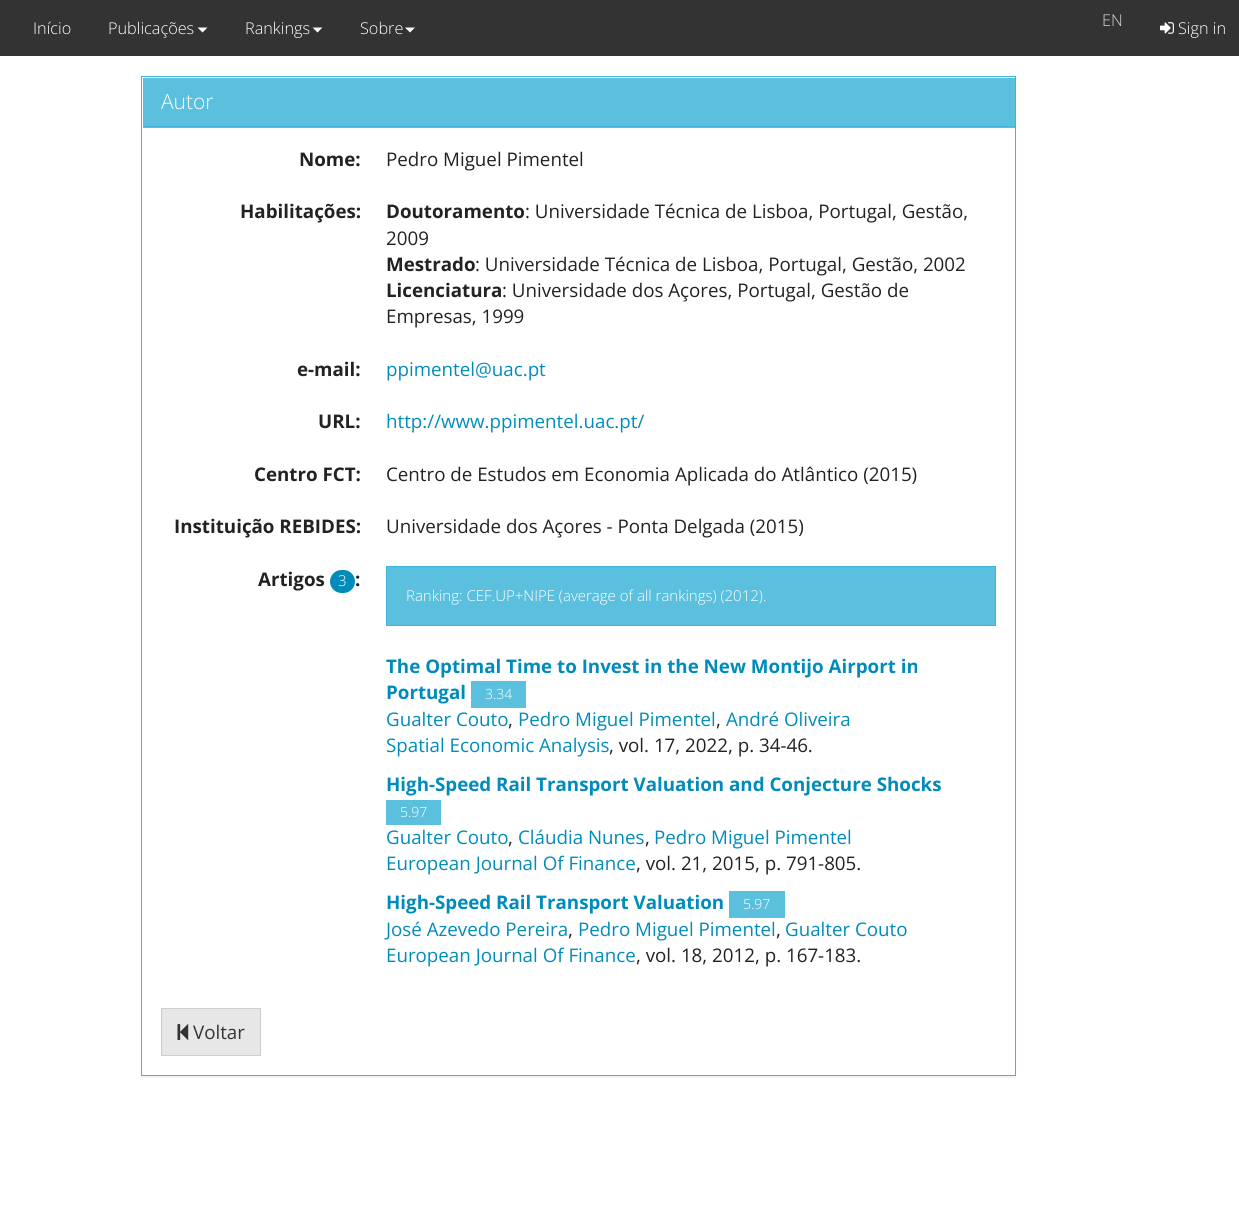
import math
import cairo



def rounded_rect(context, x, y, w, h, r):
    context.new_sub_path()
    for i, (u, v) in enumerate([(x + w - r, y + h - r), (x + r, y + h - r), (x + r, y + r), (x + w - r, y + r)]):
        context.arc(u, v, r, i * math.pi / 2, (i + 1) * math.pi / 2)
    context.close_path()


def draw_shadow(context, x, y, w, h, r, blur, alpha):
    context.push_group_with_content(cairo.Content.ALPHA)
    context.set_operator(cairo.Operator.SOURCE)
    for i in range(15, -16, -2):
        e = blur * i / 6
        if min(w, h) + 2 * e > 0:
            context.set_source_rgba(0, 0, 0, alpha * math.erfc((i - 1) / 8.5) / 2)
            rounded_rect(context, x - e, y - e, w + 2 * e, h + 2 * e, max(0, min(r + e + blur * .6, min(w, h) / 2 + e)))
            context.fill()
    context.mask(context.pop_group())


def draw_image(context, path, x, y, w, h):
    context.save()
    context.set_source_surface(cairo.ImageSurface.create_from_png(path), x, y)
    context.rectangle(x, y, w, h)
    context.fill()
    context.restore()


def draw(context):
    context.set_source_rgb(1, 1, 1)
    context.paint()
    context.set_source_rgb(51 / 255, 51 / 255, 51 / 255)
    context.rectangle(0, 0, 1239, 56)
    context.fill()
    context.set_source_rgb(1, 1, 1)
    context.new_path()
    context.move_to(197.5, 27.5)
    context.line_to(207.5, 27.5)
    context.line_to(202.5, 32.5)
    context.close_path()
    context.fill()
    context.new_path()
    context.move_to(312.5, 27.5)
    context.line_to(322.5, 27.5)
    context.line_to(317.5, 32.5)
    context.close_path()
    context.fill()
    context.new_path()
    context.move_to(405, 27.5)
    context.line_to(415, 27.5)
    context.line_to(410, 32.5)
    context.close_path()
    context.fill()
    draw_image(context, "images/1.png", 1160, 22, 14, 12)
    context.set_source_rgb(0, 0, 0)
    draw_shadow(context, 141, 78, 875, 1000, 0, 0.5, 0.05)
    context.set_source_rgb(1, 1, 1)
    context.rectangle(142, 78, 873, 997)
    context.fill()
    context.rectangle(141.5, 76.5, 874, 999)
    context.set_source_rgb(61 / 255, 181 / 255, 216 / 255)
    context.set_line_width(1)
    context.stroke()
    context.set_source_rgb(91 / 255, 192 / 255, 222 / 255)
    context.rectangle(143, 78, 872, 50)
    context.fill()
    context.set_source_rgb(61 / 255, 181 / 255, 216 / 255)
    context.rectangle(143, 126, 872, 1)
    context.fill()
    context.set_source_rgb(0, 140 / 255, 186 / 255)
    rounded_rect(context, 330, 570, 25, 23, 11.5)
    context.fill()
    context.set_source_rgb(91 / 255, 192 / 255, 222 / 255)
    context.rectangle(386.5, 566.5, 609, 59)
    context.fill_preserve()
    context.set_source_rgb(61 / 255, 181 / 255, 216 / 255)
    context.stroke()
    context.set_source_rgb(91 / 255, 192 / 255, 222 / 255)
    context.rectangle(471, 681, 55, 27)
    context.fill()
    context.rectangle(386, 800, 55, 25)
    context.fill()
    context.rectangle(729, 891, 56, 27)
    context.fill()
    context.set_source_rgb(231 / 255, 231 / 255, 231 / 255)
    context.rectangle(161.5, 1008.5, 99, 47)
    context.fill_preserve()
    context.set_source_rgb(204 / 255, 204 / 255, 204 / 255)
    context.stroke()
    draw_image(context, "images/2.png", 177, 1024, 12, 17)
    context.select_font_face("Open Sans Light")
    context.set_font_size(16.25)
    context.set_source_rgb(1, 1, 1)
    context.move_to(33, 34)
    context.show_text("Início")
    context.move_to(108, 34)
    context.show_text("Publicações")
    context.move_to(245, 34)
    context.show_text("Rankings")
    context.move_to(360, 34)
    context.show_text("Sobre")
    context.set_source_rgb(216 / 255, 216 / 255, 216 / 255)
    context.move_to(1102, 26)
    context.show_text("EN")
    context.set_source_rgb(1, 1, 1)
    context.move_to(1178, 34)
    context.show_text("Sign in")
    context.set_font_size(21)
    context.move_to(161, 109)
    context.show_text("Autor")
    context.select_font_face("Open Sans", cairo.FontSlant.NORMAL, cairo.FontWeight.BOLD)
    context.set_font_size(18.75)
    context.set_source_rgb(34 / 255, 34 / 255, 34 / 255)
    context.move_to(299, 166)
    context.show_text("Nome:")
    context.select_font_face("Open Sans")
    context.move_to(386, 166)
    context.show_text("Pedro Miguel Pimentel")
    context.select_font_face("Open Sans", cairo.FontSlant.NORMAL, cairo.FontWeight.BOLD)
    context.move_to(240, 218)
    context.show_text("Habilitações:")
    context.move_to(386, 218)
    context.show_text("Doutoramento")
    context.select_font_face("Open Sans")
    context.move_to(525, 218)
    context.show_text(": Universidade Técnica de Lisboa, Portugal, Gestão,")
    context.move_to(386, 245)
    context.show_text("2009")
    context.select_font_face("Open Sans", cairo.FontSlant.NORMAL, cairo.FontWeight.BOLD)
    context.move_to(386, 271)
    context.show_text("Mestrado")
    context.select_font_face("Open Sans")
    context.move_to(475, 271)
    context.show_text(": Universidade Técnica de Lisboa, Portugal, Gestão, 2002")
    context.select_font_face("Open Sans", cairo.FontSlant.NORMAL, cairo.FontWeight.BOLD)
    context.move_to(386, 297)
    context.show_text("Licenciatura")
    context.select_font_face("Open Sans")
    context.move_to(502, 297)
    context.show_text(": Universidade dos Açores, Portugal, Gestão de")
    context.move_to(386, 323)
    context.show_text("Empresas, 1999")
    context.select_font_face("Open Sans", cairo.FontSlant.NORMAL, cairo.FontWeight.BOLD)
    context.move_to(297, 376)
    context.show_text("e-mail:")
    context.select_font_face("Open Sans")
    context.set_source_rgb(0, 140 / 255, 186 / 255)
    context.move_to(386, 376)
    context.show_text("ppimentel@uac.pt")
    context.select_font_face("Open Sans", cairo.FontSlant.NORMAL, cairo.FontWeight.BOLD)
    context.set_source_rgb(34 / 255, 34 / 255, 34 / 255)
    context.move_to(318, 428)
    context.show_text("URL:")
    context.select_font_face("Open Sans")
    context.set_source_rgb(0, 140 / 255, 186 / 255)
    context.move_to(386, 428)
    context.show_text("http://www.ppimentel.uac.pt/")
    context.select_font_face("Open Sans", cairo.FontSlant.NORMAL, cairo.FontWeight.BOLD)
    context.set_source_rgb(34 / 255, 34 / 255, 34 / 255)
    context.move_to(254, 481)
    context.show_text("Centro FCT:")
    context.select_font_face("Open Sans")
    context.move_to(386, 481)
    context.show_text("Centro de Estudos em Economia Aplicada do Atlântico (2015)")
    context.select_font_face("Open Sans", cairo.FontSlant.NORMAL, cairo.FontWeight.BOLD)
    context.move_to(174, 533)
    context.show_text("Instituição REBIDES:")
    context.select_font_face("Open Sans")
    context.move_to(386, 533)
    context.show_text("Universidade dos Açores - Ponta Delgada (2015)")
    context.select_font_face("Open Sans", cairo.FontSlant.NORMAL, cairo.FontWeight.BOLD)
    context.move_to(258, 586)
    context.show_text("Artigos")
    context.select_font_face("Open Sans Light")
    context.set_font_size(15)
    context.set_source_rgb(1, 1, 1)
    context.move_to(338, 586)
    context.show_text("3")
    context.select_font_face("Open Sans", cairo.FontSlant.NORMAL, cairo.FontWeight.BOLD)
    context.set_font_size(18.75)
    context.set_source_rgb(34 / 255, 34 / 255, 34 / 255)
    context.move_to(355, 586)
    context.show_text(":")
    context.select_font_face("Open Sans Light")
    context.set_font_size(15)
    context.set_source_rgb(1, 1, 1)
    context.move_to(406, 601)
    context.show_text("Ranking: CEF.UP+NIPE (average of all rankings) (2012).")
    context.select_font_face("Open Sans", cairo.FontSlant.NORMAL, cairo.FontWeight.BOLD)
    context.set_font_size(18.75)
    context.set_source_rgb(0, 140 / 255, 186 / 255)
    context.move_to(386, 673)
    context.show_text("The Optimal Time to Invest in the New Montijo Airport in")
    context.move_to(386, 699)
    context.show_text("Portugal")
    context.select_font_face("Open Sans Light")
    context.set_font_size(14)
    context.set_source_rgb(1, 1, 1)
    context.move_to(485, 699)
    context.show_text("3.34")
    context.select_font_face("Open Sans")
    context.set_font_size(18.75)
    context.set_source_rgb(0, 140 / 255, 186 / 255)
    context.move_to(386, 726)
    context.show_text("Gualter Couto")
    context.set_source_rgb(34 / 255, 34 / 255, 34 / 255)
    context.move_to(508, 726)
    context.show_text(",")
    context.set_source_rgb(0, 140 / 255, 186 / 255)
    context.move_to(518, 726)
    context.show_text("Pedro Miguel Pimentel")
    context.set_source_rgb(34 / 255, 34 / 255, 34 / 255)
    context.move_to(716, 726)
    context.show_text(",")
    context.set_source_rgb(0, 140 / 255, 186 / 255)
    context.move_to(726, 726)
    context.show_text("André Oliveira")
    context.move_to(386, 752)
    context.show_text("Spatial Economic Analysis")
    context.set_source_rgb(34 / 255, 34 / 255, 34 / 255)
    context.move_to(609, 752)
    context.show_text(", vol. 17, 2022, p. 34-46.")
    context.select_font_face("Open Sans", cairo.FontSlant.NORMAL, cairo.FontWeight.BOLD)
    context.set_source_rgb(0, 140 / 255, 186 / 255)
    context.move_to(386, 791)
    context.show_text("High-Speed Rail Transport Valuation and Conjecture Shocks")
    context.select_font_face("Open Sans Light")
    context.set_font_size(14)
    context.set_source_rgb(1, 1, 1)
    context.move_to(400, 817)
    context.show_text("5.97")
    context.select_font_face("Open Sans")
    context.set_font_size(18.75)
    context.set_source_rgb(0, 140 / 255, 186 / 255)
    context.move_to(386, 844)
    context.show_text("Gualter Couto")
    context.set_source_rgb(34 / 255, 34 / 255, 34 / 255)
    context.move_to(508, 844)
    context.show_text(",")
    context.set_source_rgb(0, 140 / 255, 186 / 255)
    context.move_to(518, 844)
    context.show_text("Cláudia Nunes")
    context.set_source_rgb(34 / 255, 34 / 255, 34 / 255)
    context.move_to(645, 844)
    context.show_text(",")
    context.set_source_rgb(0, 140 / 255, 186 / 255)
    context.move_to(654, 844)
    context.show_text("Pedro Miguel Pimentel")
    context.move_to(386, 870)
    context.show_text("European Journal Of Finance")
    context.set_source_rgb(34 / 255, 34 / 255, 34 / 255)
    context.move_to(636, 870)
    context.show_text(", vol. 21, 2015, p. 791-805.")
    context.select_font_face("Open Sans", cairo.FontSlant.NORMAL, cairo.FontWeight.BOLD)
    context.set_source_rgb(0, 140 / 255, 186 / 255)
    context.move_to(386, 909)
    context.show_text("High-Speed Rail Transport Valuation")
    context.select_font_face("Open Sans Light")
    context.set_font_size(14)
    context.set_source_rgb(1, 1, 1)
    context.move_to(743, 909)
    context.show_text("5.97")
    context.select_font_face("Open Sans")
    context.set_font_size(18.75)
    context.set_source_rgb(0, 140 / 255, 186 / 255)
    context.move_to(386, 936)
    context.show_text("José Azevedo Pereira")
    context.set_source_rgb(34 / 255, 34 / 255, 34 / 255)
    context.move_to(568, 936)
    context.show_text(",")
    context.set_source_rgb(0, 140 / 255, 186 / 255)
    context.move_to(578, 936)
    context.show_text("Pedro Miguel Pimentel")
    context.set_source_rgb(34 / 255, 34 / 255, 34 / 255)
    context.move_to(776, 936)
    context.show_text(",")
    context.set_source_rgb(0, 140 / 255, 186 / 255)
    context.move_to(785, 936)
    context.show_text("Gualter Couto")
    context.move_to(386, 962)
    context.show_text("European Journal Of Finance")
    context.set_source_rgb(34 / 255, 34 / 255, 34 / 255)
    context.move_to(636, 962)
    context.show_text(", vol. 18, 2012, p. 167-183.")
    context.set_source_rgb(51 / 255, 51 / 255, 51 / 255)
    context.move_to(193, 1039)
    context.show_text("Voltar")


surface = cairo.ImageSurface(cairo.Format.RGB24, 1239, 1224)
context = cairo.Context(surface)
options = cairo.FontOptions()
options.set_hint_metrics(cairo.HintMetrics.OFF)
options.set_hint_style(cairo.HintStyle.NONE)
context.set_font_options(options)
context.set_miter_limit(4)
draw(context)
surface.write_to_png("out.png")
